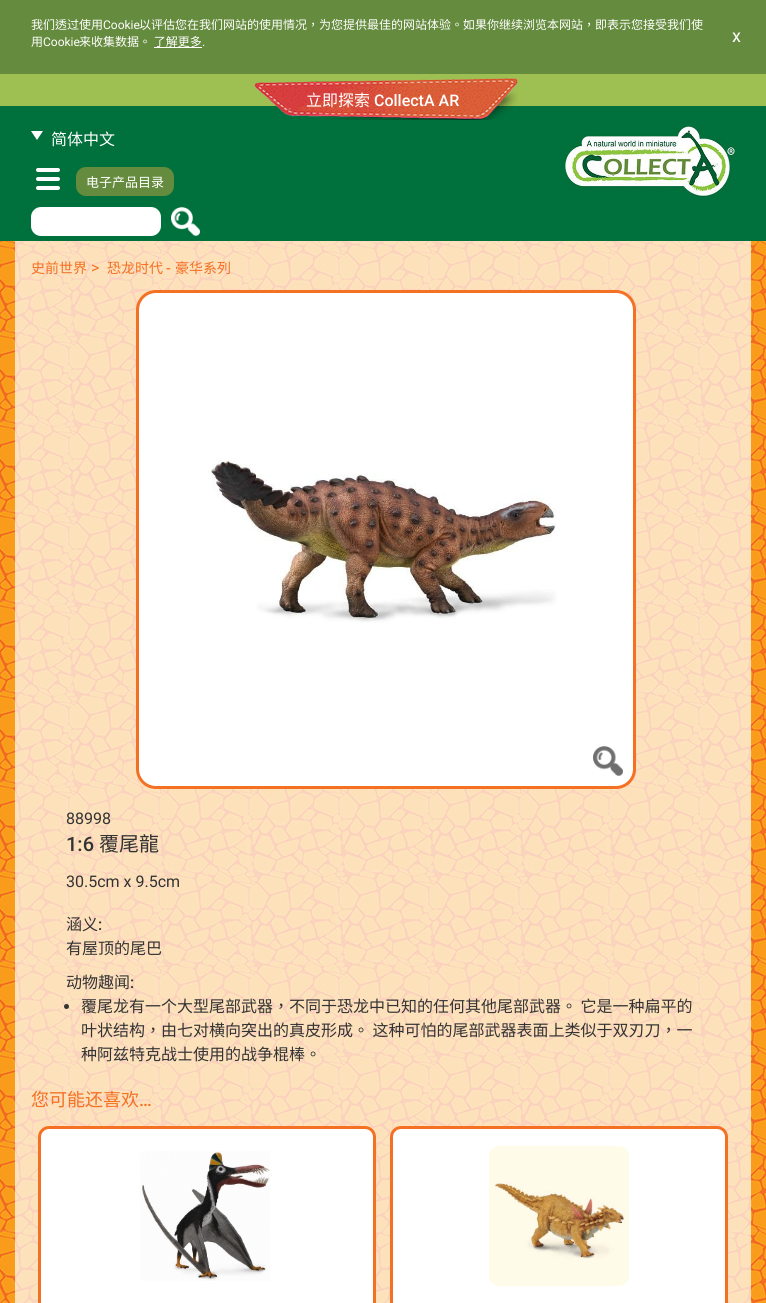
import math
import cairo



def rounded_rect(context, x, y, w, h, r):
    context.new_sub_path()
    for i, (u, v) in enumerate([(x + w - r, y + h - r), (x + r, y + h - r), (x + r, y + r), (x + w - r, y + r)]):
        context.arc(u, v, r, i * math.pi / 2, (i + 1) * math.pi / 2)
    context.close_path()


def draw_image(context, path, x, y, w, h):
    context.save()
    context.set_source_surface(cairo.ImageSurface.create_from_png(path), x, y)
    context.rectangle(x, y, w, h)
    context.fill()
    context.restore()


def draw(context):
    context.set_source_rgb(101 / 255, 139 / 255, 62 / 255)
    context.paint()
    context.set_source_rgb(1, 1, 1)
    context.rectangle(154, 47, 48, 1)
    context.fill()
    context.set_source_rgb(158 / 255, 192 / 255, 82 / 255)
    context.rectangle(0, 74, 766, 32)
    context.fill()
    context.set_source_rgb(0, 112 / 255, 60 / 255)
    context.rectangle(0, 106, 766, 135)
    context.fill()
    draw_image(context, "images/1.png", 254, 78, 264, 42)
    draw_image(context, "images/2.png", 31, 131, 12, 9)
    draw_image(context, "images/3.png", 36, 168, 24, 22)
    context.set_source_rgb(101 / 255, 139 / 255, 62 / 255)
    rounded_rect(context, 76, 167, 98, 29, 10)
    context.fill()
    context.set_source_rgb(1, 1, 1)
    rounded_rect(context, 31, 207, 130, 29, 10)
    context.fill()
    draw_image(context, "images/4.png", 171, 207, 29, 29)
    draw_image(context, "images/5.png", 565, 126, 170, 71)
    draw_image(context, "images/6.png", 0, 241, 766, 1062)
    rounded_rect(context, 137.5, 291.5, 497, 496, 18.5)
    context.fill_preserve()
    context.set_source_rgb(244 / 255, 112 / 255, 34 / 255)
    context.set_line_width(3)
    context.stroke()
    draw_image(context, "images/7.png", 207, 460, 350, 163)
    draw_image(context, "images/8.png", 593, 746, 30, 30)
    context.set_source_rgb(51 / 255, 51 / 255, 51 / 255)
    context.arc(66.5, 1006.5, 2.5, 0, 2 * math.pi)
    context.fill()
    context.set_source_rgb(1, 1, 1)
    rounded_rect(context, 39.5, 1127.5, 335, 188, 9.5)
    context.fill_preserve()
    context.set_source_rgb(244 / 255, 112 / 255, 34 / 255)
    context.stroke()
    draw_image(context, "images/9.png", 140, 1151, 130, 130)
    context.set_source_rgb(1, 1, 1)
    rounded_rect(context, 391.5, 1127.5, 335, 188, 9.5)
    context.fill_preserve()
    context.set_source_rgb(244 / 255, 112 / 255, 34 / 255)
    context.stroke()
    draw_image(context, "images/10.png", 489, 1146, 140, 140)
    context.select_font_face("Noto Sans CJK HK")
    context.set_font_size(12)
    context.set_source_rgb(1, 1, 1)
    context.move_to(31, 29)
    context.show_text("我们透过使用")
    context.select_font_face("Roboto")
    context.move_to(103, 29)
    context.show_text("Cookie")
    context.select_font_face("Noto Sans CJK HK")
    context.move_to(139, 29)
    context.show_text("以评估您在我们网站的使用情况，为您提供最佳的网站体验。如果你继续浏览本网站，即表示您接受我们使")
    context.move_to(31, 46)
    context.show_text("用")
    context.select_font_face("Roboto")
    context.move_to(43, 46)
    context.show_text("Cookie")
    context.select_font_face("Noto Sans CJK HK")
    context.move_to(79, 46)
    context.show_text("来收集数据。 了解更多")
    context.select_font_face("Roboto")
    context.move_to(202, 46)
    context.show_text(".")
    context.set_font_size(18)
    context.move_to(732, 42)
    context.show_text("x")
    context.select_font_face("Noto Sans CJK HK")
    context.set_font_size(16)
    context.move_to(306, 106)
    context.show_text("立即探索")
    context.select_font_face("Roboto Medium")
    context.move_to(374, 106)
    context.show_text("CollectA AR")
    context.select_font_face("Noto Sans CJK HK")
    context.move_to(51, 145)
    context.show_text("简体中文")
    context.set_font_size(13)
    context.move_to(86, 187)
    context.show_text("电子产品目录")
    context.set_font_size(14)
    context.set_source_rgb(244 / 255, 112 / 255, 34 / 255)
    context.move_to(31, 273)
    context.show_text("史前世界")
    context.select_font_face("Roboto")
    context.set_font_size(16)
    context.move_to(91, 273)
    context.show_text(">")
    context.select_font_face("Noto Sans CJK HK")
    context.set_font_size(14)
    context.move_to(107, 273)
    context.show_text("恐龙时代")
    context.select_font_face("Roboto Medium")
    context.move_to(166, 273)
    context.show_text("-")
    context.select_font_face("Noto Sans CJK HK")
    context.move_to(175, 273)
    context.show_text("豪华系列")
    context.select_font_face("Roboto")
    context.set_font_size(16)
    context.set_source_rgb(51 / 255, 51 / 255, 51 / 255)
    context.move_to(66, 824)
    context.show_text("88998")
    context.select_font_face("Roboto Medium")
    context.set_font_size(20)
    context.move_to(66, 851)
    context.show_text("1:6")
    context.select_font_face("Noto Sans CJK HK")
    context.move_to(99, 851)
    context.show_text("覆尾龍")
    context.select_font_face("Roboto")
    context.set_font_size(16)
    context.move_to(66, 887)
    context.show_text("30.5cm x 9.5cm")
    context.select_font_face("Noto Sans CJK HK")
    context.move_to(66, 930)
    context.show_text("涵义")
    context.select_font_face("Roboto Medium")
    context.move_to(98, 930)
    context.show_text(":")
    context.select_font_face("Noto Sans CJK HK")
    context.move_to(66, 954)
    context.show_text("有屋顶的尾巴")
    context.move_to(66, 988)
    context.show_text("动物趣闻")
    context.select_font_face("Roboto Medium")
    context.move_to(130, 988)
    context.show_text(":")
    context.select_font_face("Noto Sans CJK HK")
    context.move_to(81, 1012)
    context.show_text("覆尾龙有一个大型尾部武器，不同于恐龙中已知的任何其他尾部武器。 它是一种扁平的")
    context.move_to(81, 1036)
    context.show_text("叶状结构，由七对横向突出的真皮形成。 这种可怕的尾部武器表面上类似于双刃刀，一")
    context.move_to(81, 1060)
    context.show_text("种阿兹特克战士使用的战争棍棒。")
    context.set_font_size(18)
    context.set_source_rgb(244 / 255, 112 / 255, 34 / 255)
    context.move_to(31, 1106)
    context.show_text("您可能还喜欢")
    context.select_font_face("Roboto Medium")
    context.move_to(139, 1106)
    context.show_text("…")


surface = cairo.ImageSurface(cairo.Format.RGB24, 766, 1303)
context = cairo.Context(surface)
options = cairo.FontOptions()
options.set_hint_metrics(cairo.HintMetrics.OFF)
options.set_hint_style(cairo.HintStyle.NONE)
context.set_font_options(options)
context.set_miter_limit(4)
draw(context)
surface.write_to_png("out.png")
